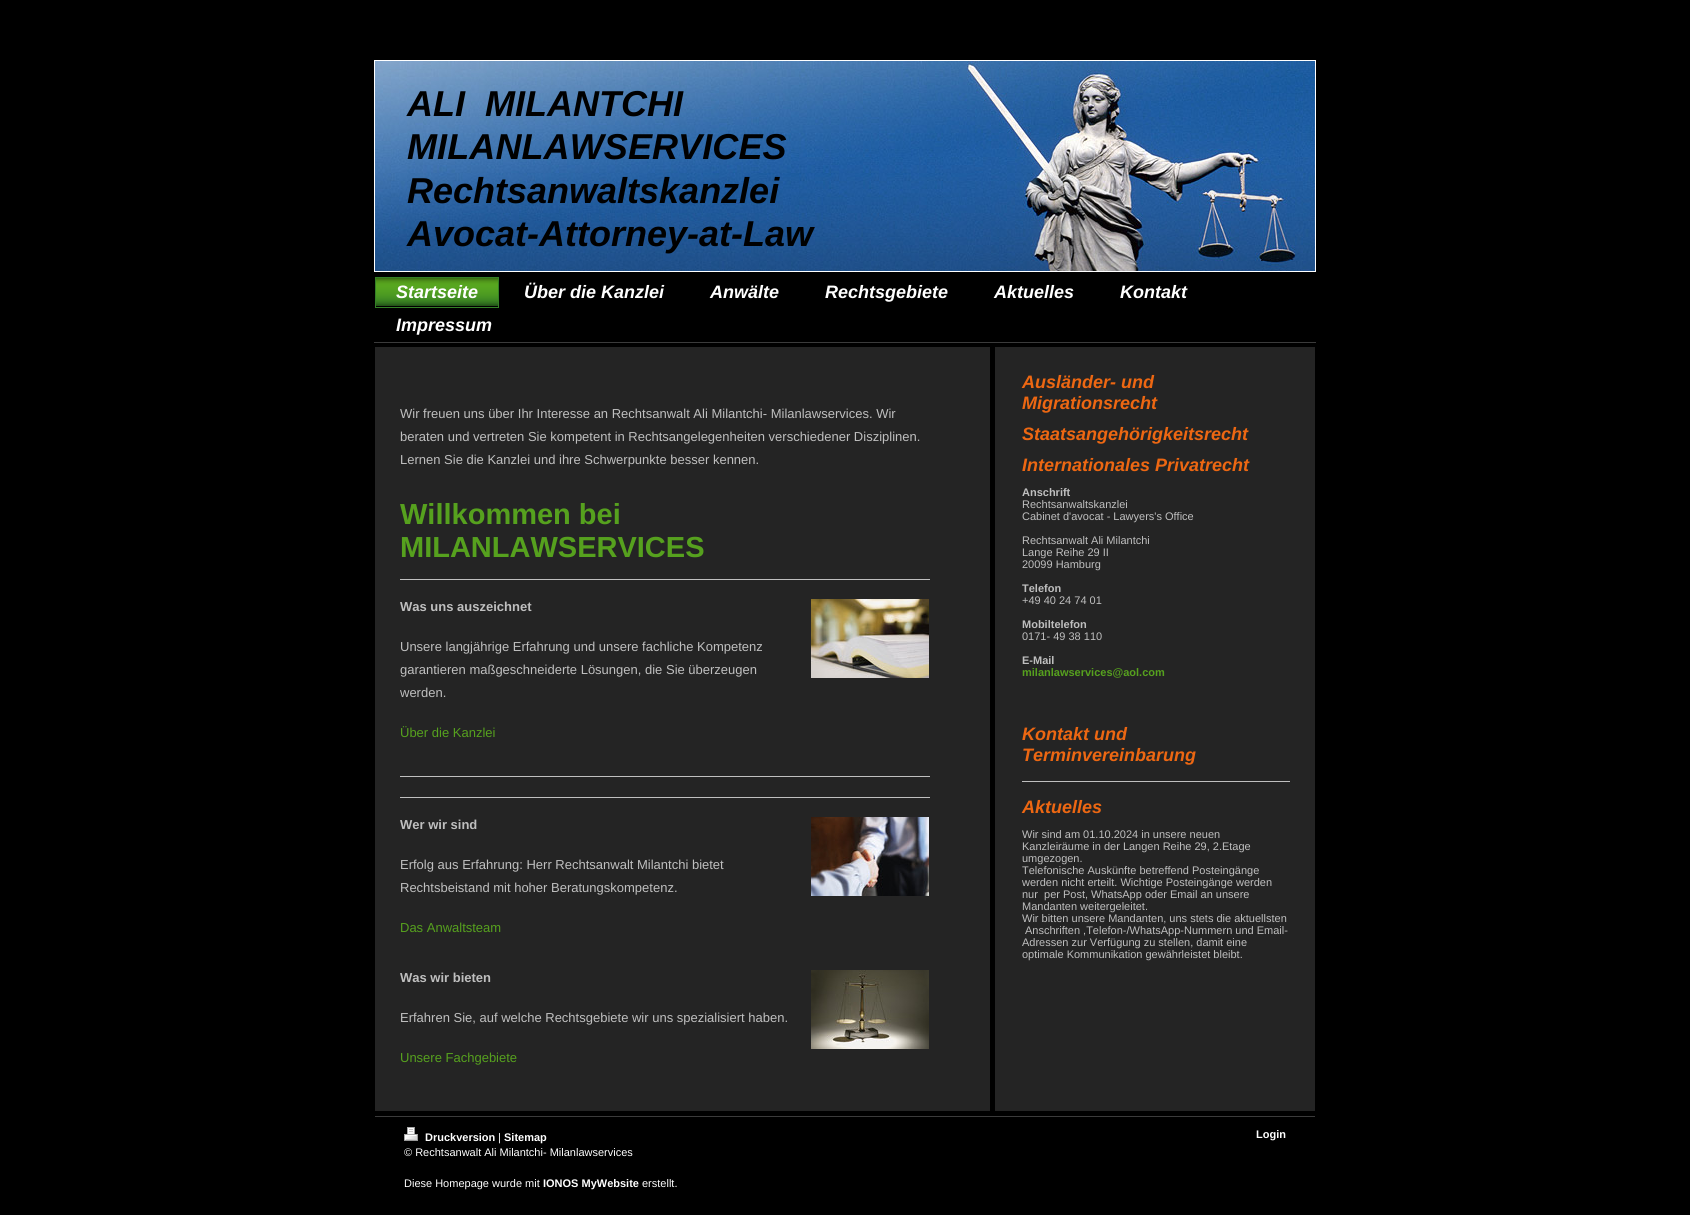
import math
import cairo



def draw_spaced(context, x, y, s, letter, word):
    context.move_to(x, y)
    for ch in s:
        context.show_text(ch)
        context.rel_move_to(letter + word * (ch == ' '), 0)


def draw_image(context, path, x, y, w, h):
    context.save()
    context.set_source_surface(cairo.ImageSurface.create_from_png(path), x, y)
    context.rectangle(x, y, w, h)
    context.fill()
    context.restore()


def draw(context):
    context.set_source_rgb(0, 0, 0)
    context.paint()
    context.rectangle(374.5, 60.5, 941, 211)
    context.set_source_rgb(1, 1, 1)
    context.set_line_width(1)
    context.stroke()
    draw_image(context, "images/1.png", 375, 61, 940, 210)
    draw_image(context, "images/2.png", 376, 278, 122, 28)
    context.rectangle(375.5, 277.5, 123, 30)
    context.set_source_rgb(52 / 255, 128 / 255, 38 / 255)
    context.stroke()
    context.set_source_rgb(59 / 255, 59 / 255, 59 / 255)
    context.rectangle(374, 342, 942, 1)
    context.fill()
    draw_image(context, "images/3.png", 375, 347, 940, 764)
    context.set_source_rgb(191 / 255, 191 / 255, 191 / 255)
    context.rectangle(400, 579, 530, 1)
    context.fill()
    draw_image(context, "images/4.png", 811, 599, 118, 79)
    context.rectangle(400, 776, 530, 1)
    context.fill()
    context.rectangle(400, 797, 530, 1)
    context.fill()
    draw_image(context, "images/5.png", 811, 817, 118, 79)
    draw_image(context, "images/6.png", 811, 970, 118, 79)
    context.rectangle(1022, 781, 268, 1)
    context.fill()
    context.set_source_rgb(59 / 255, 59 / 255, 59 / 255)
    context.rectangle(375, 1116, 940, 1)
    context.fill()
    draw_image(context, "images/7.png", 404, 1127, 14, 14)
    context.select_font_face("Liberation Sans", cairo.FontSlant.ITALIC, cairo.FontWeight.BOLD)
    context.set_font_size(36)
    context.set_source_rgb(0, 0, 0)
    context.move_to(407, 116)
    context.show_text("ALI  MILANTCHI")
    draw_spaced(context, 407, 159, "MILANLAWSERVICES", 0.1, 0)
    context.move_to(407, 203)
    context.show_text("Rechtsanwaltskanzlei")
    context.move_to(407, 246)
    context.show_text("Avocat-Attorney-at-Law")
    context.set_font_size(18)
    context.set_source_rgb(1, 1, 1)
    context.move_to(396, 298)
    context.show_text("Startseite")
    context.move_to(524, 298)
    context.show_text("Über die Kanzlei")
    context.move_to(710, 298)
    context.show_text("Anwälte")
    context.move_to(825, 298)
    context.show_text("Rechtsgebiete")
    context.move_to(994, 298)
    context.show_text("Aktuelles")
    context.move_to(1120, 298)
    context.show_text("Kontakt")
    context.move_to(396, 331)
    context.show_text("Impressum")
    context.select_font_face("Liberation Sans")
    context.set_font_size(13)
    context.set_source_rgb(191 / 255, 191 / 255, 191 / 255)
    context.move_to(400, 418)
    context.show_text("Wir freuen uns über Ihr Interesse an Rechtsanwalt Ali Milantchi- Milanlawservices. Wir")
    context.move_to(400, 441)
    context.show_text("beraten und vertreten Sie kompetent in Rechtsangelegenheiten verschiedener Disziplinen.")
    context.move_to(400, 464)
    context.show_text("Lernen Sie die Kanzlei und ihre Schwerpunkte besser kennen.")
    context.select_font_face("Liberation Sans", cairo.FontSlant.NORMAL, cairo.FontWeight.BOLD)
    context.set_font_size(29)
    context.set_source_rgb(86 / 255, 161 / 255, 30 / 255)
    context.move_to(400, 524)
    context.show_text("Willkommen bei")
    context.move_to(400, 557)
    context.show_text("MILANLAWSERVICES")
    context.set_font_size(13)
    context.set_source_rgb(191 / 255, 191 / 255, 191 / 255)
    context.move_to(400, 611)
    context.show_text("Was uns auszeichnet")
    context.select_font_face("Liberation Sans")
    context.move_to(400, 651)
    context.show_text("Unsere langjährige Erfahrung und unsere fachliche Kompetenz")
    context.move_to(400, 674)
    context.show_text("garantieren maßgeschneiderte Lösungen, die Sie überzeugen")
    context.move_to(400, 697)
    context.show_text("werden.")
    context.set_source_rgb(86 / 255, 161 / 255, 30 / 255)
    context.move_to(400, 737)
    context.show_text("Über die Kanzlei")
    context.select_font_face("Liberation Sans", cairo.FontSlant.NORMAL, cairo.FontWeight.BOLD)
    context.set_source_rgb(191 / 255, 191 / 255, 191 / 255)
    context.move_to(400, 829)
    context.show_text("Wer wir sind")
    context.select_font_face("Liberation Sans")
    context.move_to(400, 869)
    context.show_text("Erfolg aus Erfahrung: Herr Rechtsanwalt Milantchi bietet")
    context.move_to(400, 892)
    context.show_text("Rechtsbeistand mit hoher Beratungskompetenz.")
    context.set_source_rgb(86 / 255, 161 / 255, 30 / 255)
    context.move_to(400, 932)
    context.show_text("Das Anwaltsteam")
    context.select_font_face("Liberation Sans", cairo.FontSlant.NORMAL, cairo.FontWeight.BOLD)
    context.set_source_rgb(191 / 255, 191 / 255, 191 / 255)
    context.move_to(400, 982)
    context.show_text("Was wir bieten")
    context.select_font_face("Liberation Sans")
    context.move_to(400, 1022)
    context.show_text("Erfahren Sie, auf welche Rechtsgebiete wir uns spezialisiert haben.")
    context.set_source_rgb(86 / 255, 161 / 255, 30 / 255)
    context.move_to(400, 1062)
    context.show_text("Unsere Fachgebiete")
    context.select_font_face("Liberation Sans", cairo.FontSlant.ITALIC, cairo.FontWeight.BOLD)
    context.set_font_size(18)
    context.set_source_rgb(237 / 255, 103 / 255, 18 / 255)
    context.move_to(1022, 388)
    context.show_text("Ausländer- und")
    context.move_to(1022, 409)
    context.show_text("Migrationsrecht")
    context.move_to(1022, 440)
    context.show_text("Staatsangehörigkeitsrecht")
    context.move_to(1022, 471)
    context.show_text("Internationales Privatrecht")
    context.select_font_face("Liberation Sans", cairo.FontSlant.NORMAL, cairo.FontWeight.BOLD)
    context.set_font_size(11)
    context.set_source_rgb(191 / 255, 191 / 255, 191 / 255)
    context.move_to(1022, 496)
    context.show_text("Anschrift")
    context.select_font_face("Liberation Sans")
    context.move_to(1022, 508)
    context.show_text("Rechtsanwaltskanzlei")
    context.move_to(1022, 520)
    context.show_text("Cabinet d'avocat - Lawyers's Office")
    context.move_to(1022, 544)
    context.show_text("Rechtsanwalt Ali Milantchi")
    context.move_to(1022, 556)
    context.show_text("Lange Reihe 29 II")
    context.move_to(1022, 568)
    context.show_text("20099 Hamburg")
    context.select_font_face("Liberation Sans", cairo.FontSlant.NORMAL, cairo.FontWeight.BOLD)
    context.move_to(1022, 592)
    context.show_text("Telefon")
    context.select_font_face("Liberation Sans")
    context.move_to(1022, 604)
    context.show_text("+49 40 24 74 01")
    context.select_font_face("Liberation Sans", cairo.FontSlant.NORMAL, cairo.FontWeight.BOLD)
    context.move_to(1022, 628)
    context.show_text("Mobiltelefon")
    context.select_font_face("Liberation Sans")
    context.move_to(1022, 640)
    context.show_text("0171- 49 38 110")
    context.select_font_face("Liberation Sans", cairo.FontSlant.NORMAL, cairo.FontWeight.BOLD)
    context.move_to(1022, 664)
    context.show_text("E-Mail")
    context.set_source_rgb(86 / 255, 161 / 255, 30 / 255)
    context.move_to(1022, 676)
    context.show_text("milanlawservices@aol.com")
    context.select_font_face("Liberation Sans", cairo.FontSlant.ITALIC, cairo.FontWeight.BOLD)
    context.set_font_size(18)
    context.set_source_rgb(237 / 255, 103 / 255, 18 / 255)
    context.move_to(1022, 740)
    context.show_text("Kontakt und")
    context.move_to(1022, 761)
    context.show_text("Terminvereinbarung")
    context.move_to(1022, 813)
    context.show_text("Aktuelles")
    context.select_font_face("Liberation Sans")
    context.set_font_size(11)
    context.set_source_rgb(191 / 255, 191 / 255, 191 / 255)
    context.move_to(1022, 838)
    context.show_text("Wir sind am 01.10.2024 in unsere neuen")
    context.move_to(1022, 850)
    context.show_text("Kanzleiräume in der Langen Reihe 29, 2.Etage")
    context.move_to(1022, 862)
    context.show_text("umgezogen.")
    context.move_to(1022, 874)
    context.show_text("Telefonische Auskünfte betreffend Posteingänge")
    context.move_to(1022, 886)
    context.show_text("werden nicht erteilt. Wichtige Posteingänge werden")
    context.move_to(1022, 898)
    context.show_text("nur  per Post, WhatsApp oder Email an unsere")
    context.move_to(1022, 910)
    context.show_text("Mandanten weitergeleitet.")
    context.move_to(1022, 922)
    context.show_text("Wir bitten unsere Mandanten, uns stets die aktuellsten")
    context.move_to(1025, 934)
    context.show_text("Anschriften ,Telefon-/WhatsApp-Nummern und Email-")
    context.move_to(1022, 946)
    context.show_text("Adressen zur Verfügung zu stellen, damit eine")
    context.move_to(1022, 958)
    context.show_text("optimale Kommunikation gewährleistet bleibt.")
    context.select_font_face("Liberation Sans", cairo.FontSlant.NORMAL, cairo.FontWeight.BOLD)
    context.set_source_rgb(1, 1, 1)
    context.move_to(425, 1141)
    context.show_text("Druckversion")
    context.select_font_face("Liberation Sans")
    context.move_to(498, 1141)
    context.show_text("|")
    context.select_font_face("Liberation Sans", cairo.FontSlant.NORMAL, cairo.FontWeight.BOLD)
    context.move_to(504, 1141)
    context.show_text("Sitemap")
    context.select_font_face("Liberation Sans")
    context.move_to(404, 1156)
    context.show_text("© Rechtsanwalt Ali Milantchi- Milanlawservices")
    context.move_to(404, 1187)
    context.show_text("Diese Homepage wurde mit")
    context.select_font_face("Liberation Sans", cairo.FontSlant.NORMAL, cairo.FontWeight.BOLD)
    context.move_to(543, 1187)
    context.show_text("IONOS MyWebsite")
    context.select_font_face("Liberation Sans")
    context.move_to(642, 1187)
    context.show_text("erstellt.")
    context.select_font_face("Liberation Sans", cairo.FontSlant.NORMAL, cairo.FontWeight.BOLD)
    context.move_to(1256, 1138)
    context.show_text("Login")


surface = cairo.ImageSurface(cairo.Format.RGB24, 1690, 1215)
context = cairo.Context(surface)
options = cairo.FontOptions()
options.set_hint_metrics(cairo.HintMetrics.OFF)
options.set_hint_style(cairo.HintStyle.NONE)
context.set_font_options(options)
context.set_miter_limit(4)
draw(context)
surface.write_to_png("out.png")
